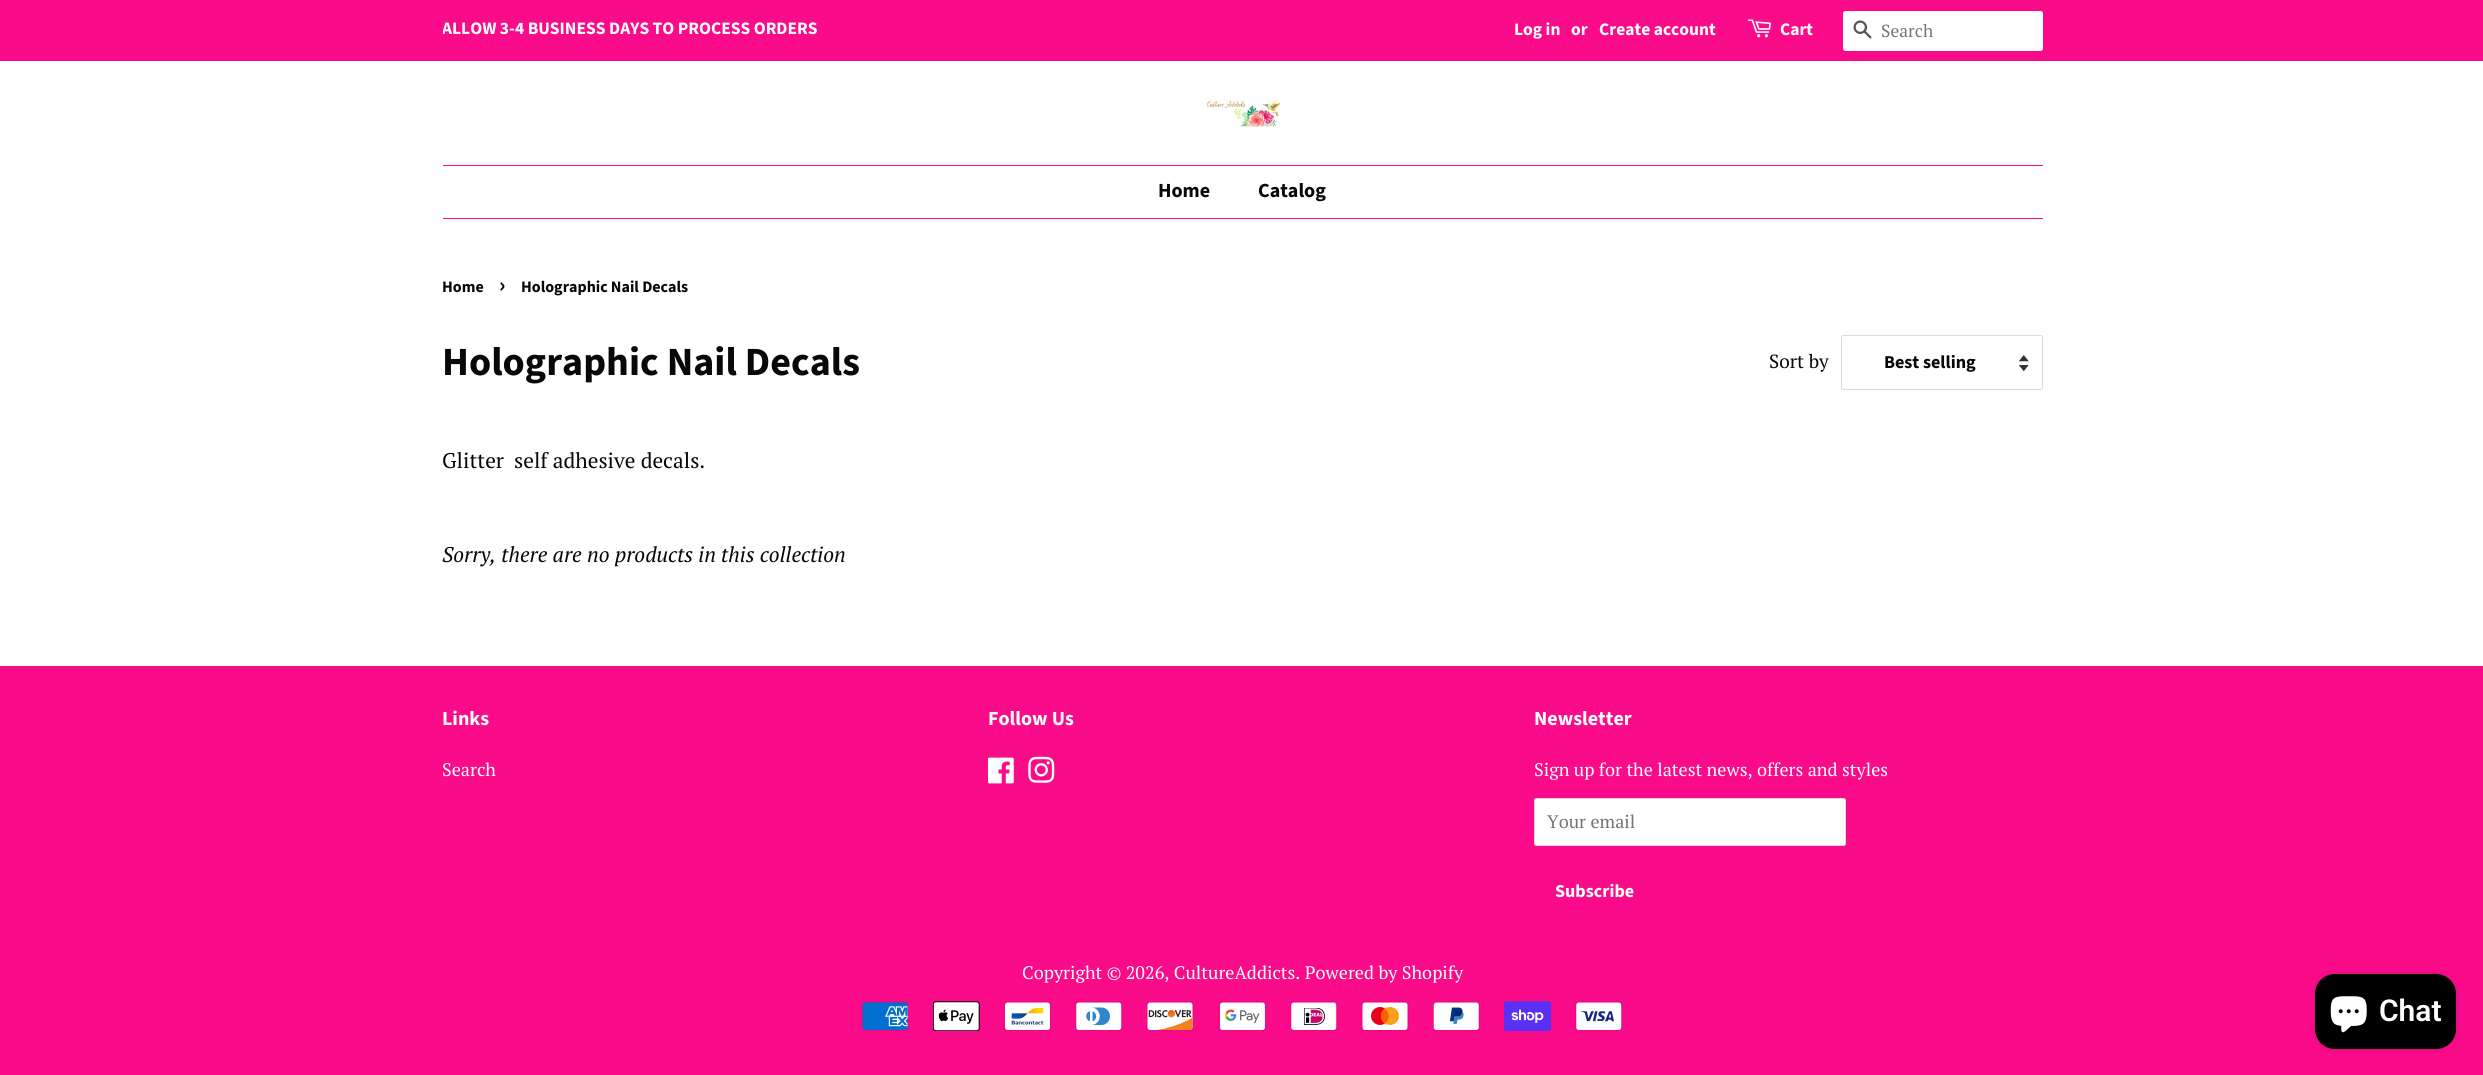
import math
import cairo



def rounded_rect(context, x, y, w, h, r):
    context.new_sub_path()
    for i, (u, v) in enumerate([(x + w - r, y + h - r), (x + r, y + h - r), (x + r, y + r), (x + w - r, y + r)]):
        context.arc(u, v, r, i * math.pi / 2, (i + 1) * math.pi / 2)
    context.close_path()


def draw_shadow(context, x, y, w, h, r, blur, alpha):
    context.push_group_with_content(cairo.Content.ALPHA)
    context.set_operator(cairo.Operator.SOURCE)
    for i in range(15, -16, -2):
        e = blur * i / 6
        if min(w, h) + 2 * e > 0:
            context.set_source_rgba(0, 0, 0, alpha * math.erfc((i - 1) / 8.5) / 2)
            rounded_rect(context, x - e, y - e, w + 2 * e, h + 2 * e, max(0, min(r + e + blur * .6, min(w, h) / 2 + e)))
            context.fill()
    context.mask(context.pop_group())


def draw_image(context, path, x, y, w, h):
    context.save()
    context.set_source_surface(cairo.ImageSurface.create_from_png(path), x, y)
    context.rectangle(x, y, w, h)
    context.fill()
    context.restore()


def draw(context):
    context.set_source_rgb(1, 1, 1)
    context.paint()
    context.set_source_rgb(249 / 255, 11 / 255, 138 / 255)
    context.rectangle(0, 0, 2483, 61)
    context.fill()
    draw_image(context, "images/1.png", 1748, 19, 23, 19)
    context.set_source_rgb(1, 1, 1)
    rounded_rect(context, 1843, 11, 200, 40, 2.5)
    context.fill()
    draw_image(context, "images/2.png", 1853, 20, 19, 19)
    draw_image(context, "images/3.png", 1206, 99, 74, 28)
    context.set_source_rgb(249 / 255, 11 / 255, 138 / 255)
    context.rectangle(443, 165, 1600, 1)
    context.fill()
    context.rectangle(443, 218, 1600, 1)
    context.fill()
    draw_image(context, "images/4.png", 2019, 355, 10, 16)
    rounded_rect(context, 1841.5, 335.5, 201, 54, 2)
    context.set_source_rgb(218 / 255, 218 / 255, 218 / 255)
    context.set_line_width(1)
    context.stroke()
    context.set_source_rgb(249 / 255, 11 / 255, 138 / 255)
    context.rectangle(0, 666, 2483, 409)
    context.fill()
    draw_image(context, "images/5.png", 988, 757, 26, 27)
    draw_image(context, "images/6.png", 1028, 756, 27, 27)
    context.set_source_rgb(1, 1, 1)
    rounded_rect(context, 1534, 798, 312, 48, 2.5)
    context.fill()
    rounded_rect(context, 1534.5, 798.5, 311, 47, 2)
    context.set_source_rgba(7 / 255, 8 / 255, 7 / 255, 0.15)
    context.stroke()
    draw_image(context, "images/7.png", 861, 1001, 48, 30)
    draw_image(context, "images/8.png", 933, 1001, 47, 30)
    draw_image(context, "images/9.png", 1004, 1001, 47, 30)
    draw_image(context, "images/10.png", 1075, 1001, 48, 30)
    draw_image(context, "images/11.png", 1146, 1001, 48, 30)
    draw_image(context, "images/12.png", 1219, 1001, 47, 30)
    draw_image(context, "images/13.png", 1290, 1001, 48, 30)
    draw_image(context, "images/14.png", 1361, 1001, 48, 30)
    draw_image(context, "images/15.png", 1433, 1001, 47, 30)
    draw_image(context, "images/16.png", 1504, 1001, 47, 30)
    draw_image(context, "images/17.png", 1575, 1001, 48, 30)
    context.set_source_rgb(0, 0, 0)
    draw_shadow(context, 2315, 974, 141, 75, 20, 3, 0.15)
    context.set_source_rgb(0, 0, 0)
    rounded_rect(context, 2315, 974, 141, 75, 20)
    context.fill()
    draw_image(context, "images/18.png", 2330, 996, 37, 37)
    context.save()
    context.rectangle(443, 16, 375, 29)
    context.clip()
    context.select_font_face("Source Sans Pro", cairo.FontSlant.NORMAL, cairo.FontWeight.BOLD)
    context.set_font_size(17.5)
    context.set_source_rgb(1, 1, 1)
    context.move_to(442, 34)
    context.show_text("ALLOW 3-4 BUSINESS DAYS TO PROCESS ORDERS")
    context.restore()
    context.select_font_face("Source Sans Pro", cairo.FontSlant.NORMAL, cairo.FontWeight.BOLD)
    context.set_font_size(17.5)
    context.set_source_rgb(1, 1, 1)
    context.move_to(1514, 35)
    context.show_text("Log in")
    context.move_to(1571, 35)
    context.show_text("or")
    context.move_to(1599, 35)
    context.show_text("Create account")
    context.move_to(1780, 35)
    context.show_text("Cart")
    context.select_font_face("PT Serif")
    context.set_source_rgb(117 / 255, 117 / 255, 117 / 255)
    context.move_to(1881, 37)
    context.show_text("Search")
    context.select_font_face("Source Sans Pro", cairo.FontSlant.NORMAL, cairo.FontWeight.BOLD)
    context.set_font_size(20)
    context.set_source_rgb(7 / 255, 8 / 255, 7 / 255)
    context.move_to(1158, 197)
    context.show_text("Home")
    context.move_to(1258, 197)
    context.show_text("Catalog")
    context.set_font_size(16)
    context.move_to(442, 292)
    context.show_text("Home")
    context.set_font_size(22)
    context.move_to(499, 292)
    context.show_text("›")
    context.set_font_size(16)
    context.move_to(521, 292)
    context.show_text("Holographic Nail Decals")
    context.set_font_size(40)
    context.move_to(442, 375)
    context.show_text("Holographic Nail Decals")
    context.select_font_face("PT Serif")
    context.set_font_size(19)
    context.move_to(1769, 368)
    context.show_text("Sort by")
    context.select_font_face("Source Sans Pro", cairo.FontSlant.NORMAL, cairo.FontWeight.BOLD)
    context.set_font_size(18.1)
    context.move_to(1884, 368)
    context.show_text("Best selling")
    context.select_font_face("PT Serif")
    context.set_font_size(21.25)
    context.move_to(442, 468)
    context.show_text("Glitter")
    context.move_to(514, 468)
    context.show_text("self adhesive decals.")
    context.select_font_face("PT Serif", cairo.FontSlant.ITALIC)
    context.move_to(442, 562)
    context.show_text("Sorry, there are no products in this collection")
    context.select_font_face("Source Sans Pro", cairo.FontSlant.NORMAL, cairo.FontWeight.BOLD)
    context.set_font_size(20)
    context.set_source_rgb(1, 1, 1)
    context.move_to(442, 725)
    context.show_text("Links")
    context.select_font_face("PT Serif")
    context.set_font_size(18.1)
    context.move_to(442, 776)
    context.show_text("Search")
    context.select_font_face("Source Sans Pro", cairo.FontSlant.NORMAL, cairo.FontWeight.BOLD)
    context.set_font_size(20)
    context.move_to(988, 725)
    context.show_text("Follow Us")
    context.move_to(1534, 725)
    context.show_text("Newsletter")
    context.select_font_face("PT Serif")
    context.set_font_size(18.1)
    context.move_to(1534, 776)
    context.show_text("Sign up for the latest news, offers and styles")
    context.set_source_rgb(117 / 255, 117 / 255, 117 / 255)
    context.move_to(1547, 828)
    context.show_text("Your email")
    context.select_font_face("Source Sans Pro", cairo.FontSlant.NORMAL, cairo.FontWeight.BOLD)
    context.set_source_rgb(1, 1, 1)
    context.move_to(1555, 897)
    context.show_text("Subscribe")
    context.select_font_face("PT Serif")
    context.move_to(1022, 979)
    context.show_text("Copyright © 2026, CultureAddicts. Powered by Shopify")
    context.select_font_face("Roboto SemiBold")
    context.set_font_size(30)
    context.move_to(2379, 1021)
    context.show_text("Chat")


surface = cairo.ImageSurface(cairo.Format.RGB24, 2483, 1075)
context = cairo.Context(surface)
options = cairo.FontOptions()
options.set_hint_metrics(cairo.HintMetrics.OFF)
options.set_hint_style(cairo.HintStyle.NONE)
context.set_font_options(options)
context.set_miter_limit(4)
draw(context)
surface.write_to_png("out.png")
